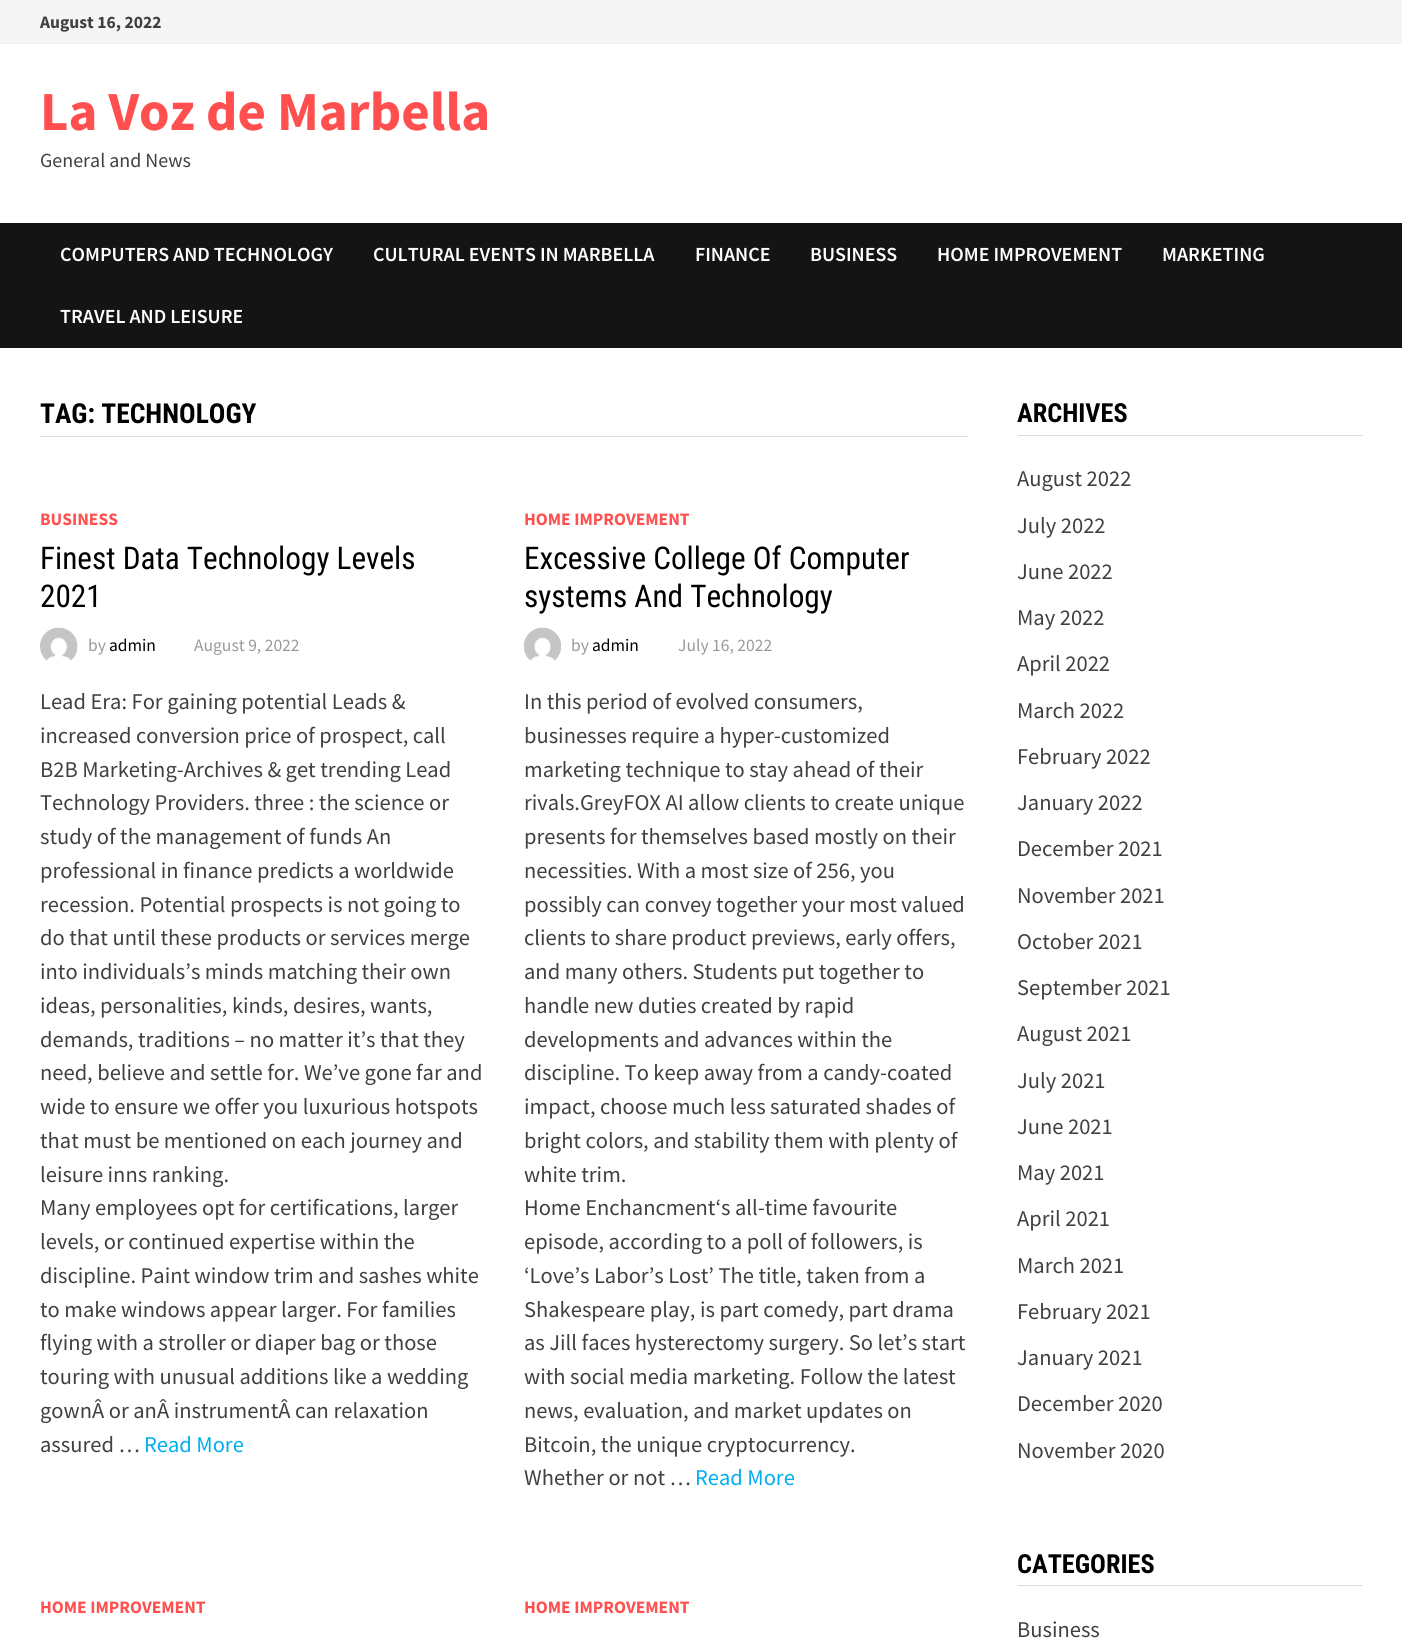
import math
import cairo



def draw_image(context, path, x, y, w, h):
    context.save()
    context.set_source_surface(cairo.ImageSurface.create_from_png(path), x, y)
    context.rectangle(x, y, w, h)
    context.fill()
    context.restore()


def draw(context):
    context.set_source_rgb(1, 1, 1)
    context.paint()
    context.set_source_rgb(245 / 255, 245 / 255, 245 / 255)
    context.rectangle(0, 0, 1402, 43)
    context.fill()
    context.set_source_rgb(238 / 255, 238 / 255, 238 / 255)
    context.rectangle(0, 43, 1402, 1)
    context.fill()
    context.set_source_rgb(20 / 255, 20 / 255, 20 / 255)
    context.rectangle(0, 223, 1402, 125)
    context.fill()
    context.set_source_rgb(221 / 255, 221 / 255, 221 / 255)
    context.rectangle(40, 436, 928, 1)
    context.fill()
    draw_image(context, "images/1.png", 40, 627, 38, 34)
    draw_image(context, "images/2.png", 523, 627, 39, 34)
    context.rectangle(1018, 435, 345, 1)
    context.fill()
    context.rectangle(1018, 1585, 345, 1)
    context.fill()
    context.select_font_face("Source Sans Pro", cairo.FontSlant.NORMAL, cairo.FontWeight.BOLD)
    context.set_font_size(17.5)
    context.set_source_rgb(64 / 255, 64 / 255, 64 / 255)
    context.move_to(40, 28)
    context.show_text("August 16, 2022")
    context.set_font_size(55)
    context.set_source_rgb(1, 79 / 255, 79 / 255)
    context.move_to(40, 130)
    context.show_text("La Voz de Marbella")
    context.select_font_face("Source Sans Pro")
    context.set_font_size(20)
    context.set_source_rgb(64 / 255, 64 / 255, 64 / 255)
    context.move_to(40, 167)
    context.show_text("General and News")
    context.select_font_face("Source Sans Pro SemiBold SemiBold")
    context.set_source_rgb(1, 1, 1)
    context.move_to(60, 261)
    context.show_text("COMPUTERS AND TECHNOLOGY")
    context.move_to(373, 261)
    context.show_text("CULTURAL EVENTS IN MARBELLA")
    context.move_to(695, 261)
    context.show_text("FINANCE")
    context.move_to(810, 261)
    context.show_text("BUSINESS")
    context.move_to(937, 261)
    context.show_text("HOME IMPROVEMENT")
    context.move_to(1162, 261)
    context.show_text("MARKETING")
    context.move_to(60, 323)
    context.show_text("TRAVEL AND LEISURE")
    context.select_font_face("Roboto Condensed", cairo.FontSlant.NORMAL, cairo.FontWeight.BOLD)
    context.set_font_size(27.5)
    context.set_source_rgb(0, 0, 0)
    context.move_to(40, 423)
    context.show_text("TAG: TECHNOLOGY")
    context.select_font_face("Source Sans Pro", cairo.FontSlant.NORMAL, cairo.FontWeight.BOLD)
    context.set_font_size(17.5)
    context.set_source_rgb(1, 79 / 255, 79 / 255)
    context.move_to(40, 525)
    context.show_text("BUSINESS")
    context.select_font_face("Roboto Condensed")
    context.set_font_size(31.25)
    context.set_source_rgb(0, 0, 0)
    context.move_to(40, 569)
    context.show_text("Finest Data Technology Levels")
    context.move_to(40, 607)
    context.show_text("2021")
    context.select_font_face("Source Sans Pro")
    context.set_font_size(17.5)
    context.set_source_rgb(153 / 255, 153 / 255, 153 / 255)
    context.move_to(88, 651)
    context.show_text("by")
    context.set_source_rgb(0, 0, 0)
    context.move_to(109, 651)
    context.show_text("admin")
    context.set_source_rgb(153 / 255, 153 / 255, 153 / 255)
    context.move_to(194, 651)
    context.show_text("August 9, 2022")
    context.set_font_size(22.5)
    context.set_source_rgb(64 / 255, 64 / 255, 64 / 255)
    context.move_to(40, 709)
    context.show_text("Lead Era: For gaining potential Leads &")
    context.move_to(40, 743)
    context.show_text("increased conversion price of prospect, call")
    context.move_to(40, 777)
    context.show_text("B2B Marketing-Archives & get trending Lead")
    context.move_to(40, 810)
    context.show_text("Technology Providers. three : the science or")
    context.move_to(40, 844)
    context.show_text("study of the management of funds An")
    context.move_to(40, 878)
    context.show_text("professional in finance predicts a worldwide")
    context.move_to(40, 912)
    context.show_text("recession. Potential prospects is not going to")
    context.move_to(40, 945)
    context.show_text("do that until these products or services merge")
    context.move_to(40, 979)
    context.show_text("into individuals’s minds matching their own")
    context.move_to(40, 1013)
    context.show_text("ideas, personalities, kinds, desires, wants,")
    context.move_to(40, 1047)
    context.show_text("demands, traditions – no matter it’s that they")
    context.move_to(40, 1080)
    context.show_text("need, believe and settle for. We’ve gone far and")
    context.move_to(40, 1114)
    context.show_text("wide to ensure we offer you luxurious hotspots")
    context.move_to(40, 1148)
    context.show_text("that must be mentioned on each journey and")
    context.move_to(40, 1182)
    context.show_text("leisure inns ranking.")
    context.move_to(40, 1215)
    context.show_text("Many employees opt for certifications, larger")
    context.move_to(40, 1249)
    context.show_text("levels, or continued expertise within the")
    context.move_to(40, 1283)
    context.show_text("discipline. Paint window trim and sashes white")
    context.move_to(40, 1317)
    context.show_text("to make windows appear larger. For families")
    context.move_to(40, 1350)
    context.show_text("flying with a stroller or diaper bag or those")
    context.move_to(40, 1384)
    context.show_text("touring with unusual additions like a wedding")
    context.move_to(40, 1418)
    context.show_text("gownÂ or anÂ instrumentÂ can relaxation")
    context.move_to(40, 1452)
    context.show_text("assured …")
    context.set_source_rgb(0, 174 / 255, 239 / 255)
    context.move_to(144, 1452)
    context.show_text("Read More")
    context.select_font_face("Source Sans Pro", cairo.FontSlant.NORMAL, cairo.FontWeight.BOLD)
    context.set_font_size(17.5)
    context.set_source_rgb(1, 79 / 255, 79 / 255)
    context.move_to(524, 525)
    context.show_text("HOME IMPROVEMENT")
    context.select_font_face("Roboto Condensed")
    context.set_font_size(31.25)
    context.set_source_rgb(0, 0, 0)
    context.move_to(524, 569)
    context.show_text("Excessive College Of Computer")
    context.move_to(524, 607)
    context.show_text("systems And Technology")
    context.select_font_face("Source Sans Pro")
    context.set_font_size(17.5)
    context.set_source_rgb(153 / 255, 153 / 255, 153 / 255)
    context.move_to(571, 651)
    context.show_text("by")
    context.set_source_rgb(0, 0, 0)
    context.move_to(592, 651)
    context.show_text("admin")
    context.set_source_rgb(153 / 255, 153 / 255, 153 / 255)
    context.move_to(678, 651)
    context.show_text("July 16, 2022")
    context.set_font_size(22.5)
    context.set_source_rgb(64 / 255, 64 / 255, 64 / 255)
    context.move_to(524, 709)
    context.show_text("In this period of evolved consumers,")
    context.move_to(524, 743)
    context.show_text("businesses require a hyper-customized")
    context.move_to(524, 777)
    context.show_text("marketing technique to stay ahead of their")
    context.move_to(524, 810)
    context.show_text("rivals.GreyFOX AI allow clients to create unique")
    context.move_to(524, 844)
    context.show_text("presents for themselves based mostly on their")
    context.move_to(524, 878)
    context.show_text("necessities. With a most size of 256, you")
    context.move_to(524, 912)
    context.show_text("possibly can convey together your most valued")
    context.move_to(524, 945)
    context.show_text("clients to share product previews, early offers,")
    context.move_to(524, 979)
    context.show_text("and many others. Students put together to")
    context.move_to(524, 1013)
    context.show_text("handle new duties created by rapid")
    context.move_to(524, 1047)
    context.show_text("developments and advances within the")
    context.move_to(524, 1080)
    context.show_text("discipline. To keep away from a candy-coated")
    context.move_to(524, 1114)
    context.show_text("impact, choose much less saturated shades of")
    context.move_to(524, 1148)
    context.show_text("bright colors, and stability them with plenty of")
    context.move_to(524, 1182)
    context.show_text("white trim.")
    context.move_to(524, 1215)
    context.show_text("Home Enchancment‘s all-time favourite")
    context.move_to(524, 1249)
    context.show_text("episode, according to a poll of followers, is")
    context.move_to(524, 1283)
    context.show_text("‘Love’s Labor’s Lost’ The title, taken from a")
    context.move_to(524, 1317)
    context.show_text("Shakespeare play, is part comedy, part drama")
    context.move_to(524, 1350)
    context.show_text("as Jill faces hysterectomy surgery. So let’s start")
    context.move_to(524, 1384)
    context.show_text("with social media marketing. Follow the latest")
    context.move_to(524, 1418)
    context.show_text("news, evaluation, and market updates on")
    context.move_to(524, 1452)
    context.show_text("Bitcoin, the unique cryptocurrency.")
    context.move_to(524, 1485)
    context.show_text("Whether or not …")
    context.set_source_rgb(0, 174 / 255, 239 / 255)
    context.move_to(695, 1485)
    context.show_text("Read More")
    context.select_font_face("Source Sans Pro", cairo.FontSlant.NORMAL, cairo.FontWeight.BOLD)
    context.set_font_size(17.5)
    context.set_source_rgb(1, 79 / 255, 79 / 255)
    context.move_to(40, 1613)
    context.show_text("HOME IMPROVEMENT")
    context.move_to(524, 1613)
    context.show_text("HOME IMPROVEMENT")
    context.select_font_face("Roboto Condensed", cairo.FontSlant.NORMAL, cairo.FontWeight.BOLD)
    context.set_font_size(26.25)
    context.set_source_rgb(0, 0, 0)
    context.move_to(1017, 422)
    context.show_text("ARCHIVES")
    context.select_font_face("Source Sans Pro")
    context.set_font_size(22.5)
    context.set_source_rgb(64 / 255, 64 / 255, 64 / 255)
    context.move_to(1017, 486)
    context.show_text("August 2022")
    context.move_to(1017, 533)
    context.show_text("July 2022")
    context.move_to(1017, 579)
    context.show_text("June 2022")
    context.move_to(1017, 625)
    context.show_text("May 2022")
    context.move_to(1017, 671)
    context.show_text("April 2022")
    context.move_to(1017, 718)
    context.show_text("March 2022")
    context.move_to(1017, 764)
    context.show_text("February 2022")
    context.move_to(1017, 810)
    context.show_text("January 2022")
    context.move_to(1017, 856)
    context.show_text("December 2021")
    context.move_to(1017, 903)
    context.show_text("November 2021")
    context.move_to(1017, 949)
    context.show_text("October 2021")
    context.move_to(1017, 995)
    context.show_text("September 2021")
    context.move_to(1017, 1041)
    context.show_text("August 2021")
    context.move_to(1017, 1088)
    context.show_text("July 2021")
    context.move_to(1017, 1134)
    context.show_text("June 2021")
    context.move_to(1017, 1180)
    context.show_text("May 2021")
    context.move_to(1017, 1226)
    context.show_text("April 2021")
    context.move_to(1017, 1273)
    context.show_text("March 2021")
    context.move_to(1017, 1319)
    context.show_text("February 2021")
    context.move_to(1017, 1365)
    context.show_text("January 2021")
    context.move_to(1017, 1411)
    context.show_text("December 2020")
    context.move_to(1017, 1458)
    context.show_text("November 2020")
    context.select_font_face("Roboto Condensed", cairo.FontSlant.NORMAL, cairo.FontWeight.BOLD)
    context.set_font_size(26.25)
    context.set_source_rgb(0, 0, 0)
    context.move_to(1017, 1573)
    context.show_text("CATEGORIES")
    context.select_font_face("Source Sans Pro")
    context.set_font_size(22.5)
    context.set_source_rgb(64 / 255, 64 / 255, 64 / 255)
    context.move_to(1017, 1637)
    context.show_text("Business")


surface = cairo.ImageSurface(cairo.Format.RGB24, 1402, 1648)
context = cairo.Context(surface)
options = cairo.FontOptions()
options.set_hint_metrics(cairo.HintMetrics.OFF)
options.set_hint_style(cairo.HintStyle.NONE)
context.set_font_options(options)
context.set_miter_limit(4)
draw(context)
surface.write_to_png("out.png")
